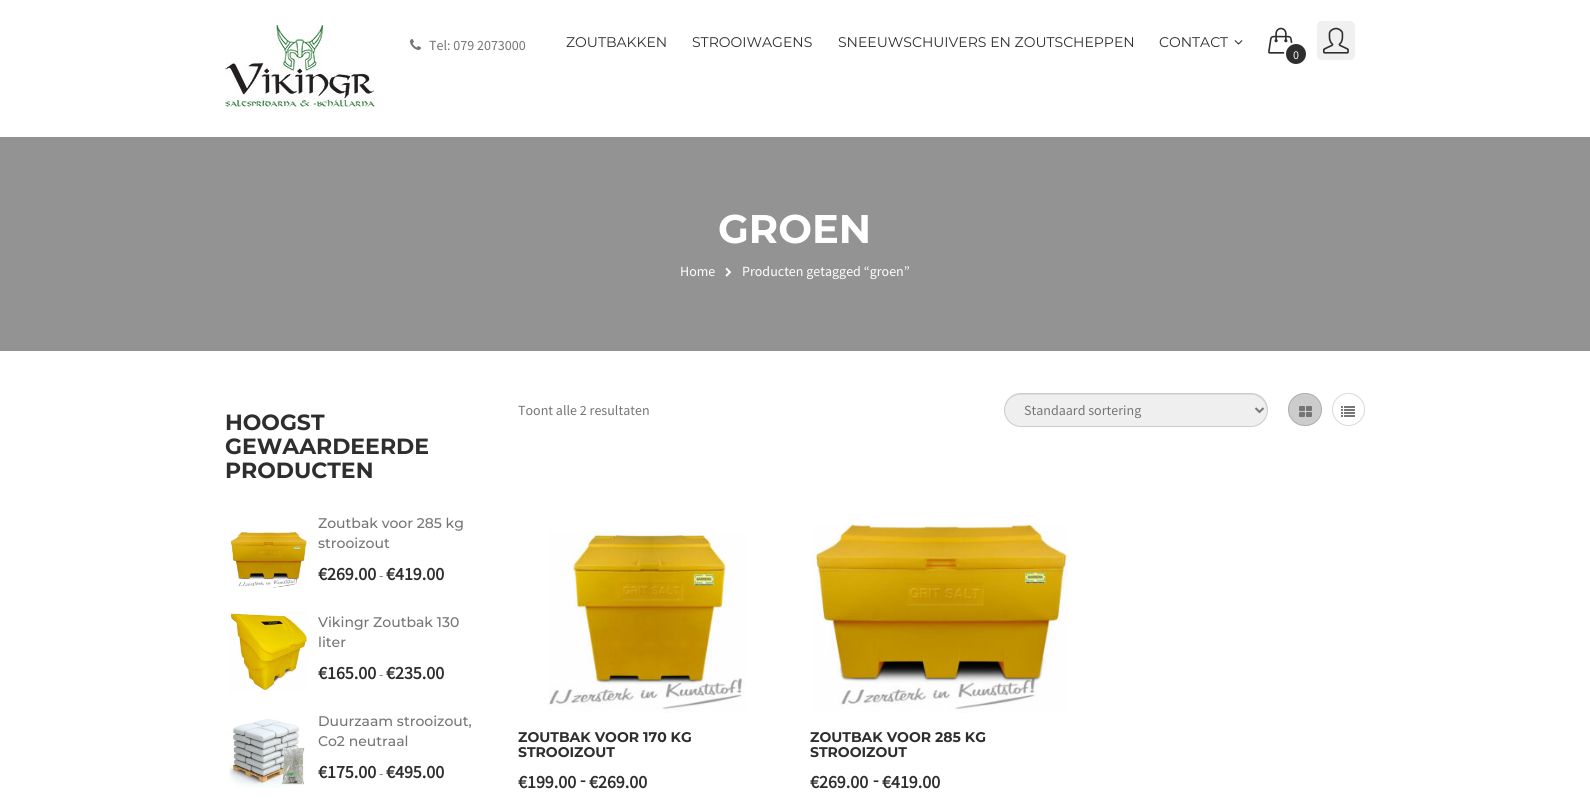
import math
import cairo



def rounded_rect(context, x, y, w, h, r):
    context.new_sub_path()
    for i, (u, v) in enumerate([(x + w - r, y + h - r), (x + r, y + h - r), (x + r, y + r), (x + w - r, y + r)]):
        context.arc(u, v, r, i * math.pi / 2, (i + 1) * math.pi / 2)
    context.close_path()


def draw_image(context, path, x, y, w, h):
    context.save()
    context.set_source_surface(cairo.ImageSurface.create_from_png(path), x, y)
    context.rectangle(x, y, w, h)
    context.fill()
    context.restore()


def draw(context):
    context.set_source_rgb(1, 1, 1)
    context.paint()
    draw_image(context, "images/1.png", 225, 25, 150, 82)
    draw_image(context, "images/2.png", 410, 39, 11, 11)
    draw_image(context, "images/3.png", 1234, 40, 9, 5)
    draw_image(context, "images/4.png", 1268, 27, 25, 27)
    context.set_source_rgb(46 / 255, 46 / 255, 46 / 255)
    context.arc(1296, 54, 11, 0, 2 * math.pi)
    context.fill_preserve()
    context.set_source_rgb(1, 1, 1)
    context.stroke()
    context.set_source_rgb(240 / 255, 240 / 255, 240 / 255)
    rounded_rect(context, 1317, 21, 38, 39, 5)
    context.fill()
    draw_image(context, "images/5.png", 1323, 27, 26, 27)
    context.set_source_rgb(147 / 255, 147 / 255, 147 / 255)
    context.rectangle(0, 137, 1590, 214)
    context.fill()
    draw_image(context, "images/6.png", 725, 267, 7, 10)
    draw_image(context, "images/7.png", 230, 532, 77, 56)
    draw_image(context, "images/8.png", 229, 612, 78, 79)
    draw_image(context, "images/9.png", 229, 719, 76, 69)
    context.set_source_rgb(239 / 255, 239 / 255, 239 / 255)
    rounded_rect(context, 1004, 393, 264, 34, 17)
    context.fill()
    context.set_source_rgb(221 / 255, 221 / 255, 221 / 255)
    context.new_path()
    context.move_to(1021, 395)
    context.line_to(1254, 395)
    context.line_to(1260, 398)
    context.curve_to(1265, 402, 1267, 407, 1267, 413)
    context.line_to(1267, 410)
    context.curve_to(1267, 401, 1260, 394, 1251, 394)
    context.line_to(1021, 394)
    context.curve_to(1012, 394, 1005, 401, 1005, 410)
    context.line_to(1005, 414)
    context.curve_to(1004, 405, 1009, 395, 1021, 395)
    context.close_path()
    context.fill()
    rounded_rect(context, 1004.5, 393.5, 263, 33, 16.5)
    context.set_source_rgba(0, 0, 0, 0.15)
    context.set_line_width(1)
    context.stroke()
    context.new_path()
    context.move_to(1255.5, 408)
    context.line_to(1259.5, 412)
    context.line_to(1263.5, 408)
    context.set_source_rgb(117 / 255, 117 / 255, 117 / 255)
    context.set_line_width(2)
    context.stroke()
    context.set_source_rgb(204 / 255, 204 / 255, 204 / 255)
    rounded_rect(context, 1288, 393, 34, 33, 16.5)
    context.fill()
    rounded_rect(context, 1288.5, 393.5, 33, 32, 16)
    context.set_source_rgba(0, 0, 0, 0.15)
    context.set_line_width(1)
    context.stroke()
    draw_image(context, "images/10.png", 1299, 406, 13, 11)
    context.arc(1348.5, 409.5, 16, 0, 2 * math.pi)
    context.set_source_rgb(217 / 255, 217 / 255, 217 / 255)
    context.stroke()
    draw_image(context, "images/11.png", 1341, 406, 14, 11)
    draw_image(context, "images/12.png", 548, 531, 198, 182)
    draw_image(context, "images/13.png", 811, 524, 257, 189)
    context.select_font_face("Source Sans Pro")
    context.set_font_size(14)
    context.set_source_rgb(117 / 255, 117 / 255, 117 / 255)
    context.move_to(429, 50)
    context.show_text("Tel: 079 2073000")
    context.select_font_face("Montserrat")
    context.set_source_rgb(46 / 255, 46 / 255, 46 / 255)
    context.move_to(566, 47)
    context.show_text("ZOUTBAKKEN")
    context.move_to(692, 47)
    context.show_text("STROOIWAGENS")
    context.move_to(838, 47)
    context.show_text("SNEEUWSCHUIVERS EN ZOUTSCHEPPEN")
    context.move_to(1159, 47)
    context.show_text("CONTACT")
    context.select_font_face("Source Sans Pro")
    context.set_font_size(12)
    context.set_source_rgb(245 / 255, 245 / 255, 245 / 255)
    context.move_to(1293, 59)
    context.show_text("0")
    context.select_font_face("Montserrat", cairo.FontSlant.NORMAL, cairo.FontWeight.BOLD)
    context.set_font_size(40)
    context.set_source_rgb(1, 1, 1)
    context.move_to(718, 243)
    context.show_text("GROEN")
    context.select_font_face("Source Sans Pro")
    context.set_font_size(14)
    context.move_to(680, 276)
    context.show_text("Home")
    context.move_to(742, 276)
    context.show_text("Producten getagged “groen”")
    context.select_font_face("Montserrat", cairo.FontSlant.NORMAL, cairo.FontWeight.BOLD)
    context.set_font_size(22)
    context.set_source_rgb(46 / 255, 46 / 255, 46 / 255)
    context.move_to(225, 430)
    context.show_text("HOOGST")
    context.move_to(225, 454)
    context.show_text("GEWAARDEERDE")
    context.move_to(225, 478)
    context.show_text("PRODUCTEN")
    context.select_font_face("Montserrat Medium")
    context.set_font_size(14)
    context.set_source_rgb(117 / 255, 117 / 255, 117 / 255)
    context.move_to(318, 528)
    context.show_text("Zoutbak voor 285 kg")
    context.move_to(318, 548)
    context.show_text("strooizout")
    context.select_font_face("Source Sans Pro", cairo.FontSlant.NORMAL, cairo.FontWeight.BOLD)
    context.set_font_size(18)
    context.set_source_rgb(46 / 255, 46 / 255, 46 / 255)
    context.move_to(318, 580)
    context.show_text("€269.00")
    context.select_font_face("Source Sans Pro")
    context.set_font_size(14)
    context.set_source_rgb(117 / 255, 117 / 255, 117 / 255)
    context.move_to(379, 580)
    context.show_text("-")
    context.select_font_face("Source Sans Pro", cairo.FontSlant.NORMAL, cairo.FontWeight.BOLD)
    context.set_font_size(18)
    context.set_source_rgb(46 / 255, 46 / 255, 46 / 255)
    context.move_to(386, 580)
    context.show_text("€419.00")
    context.select_font_face("Montserrat Medium")
    context.set_font_size(14)
    context.set_source_rgb(117 / 255, 117 / 255, 117 / 255)
    context.move_to(318, 627)
    context.show_text("Vikingr Zoutbak 130")
    context.move_to(318, 647)
    context.show_text("liter")
    context.select_font_face("Source Sans Pro", cairo.FontSlant.NORMAL, cairo.FontWeight.BOLD)
    context.set_font_size(18)
    context.set_source_rgb(46 / 255, 46 / 255, 46 / 255)
    context.move_to(318, 679)
    context.show_text("€165.00")
    context.select_font_face("Source Sans Pro")
    context.set_font_size(14)
    context.set_source_rgb(117 / 255, 117 / 255, 117 / 255)
    context.move_to(379, 679)
    context.show_text("-")
    context.select_font_face("Source Sans Pro", cairo.FontSlant.NORMAL, cairo.FontWeight.BOLD)
    context.set_font_size(18)
    context.set_source_rgb(46 / 255, 46 / 255, 46 / 255)
    context.move_to(386, 679)
    context.show_text("€235.00")
    context.select_font_face("Montserrat Medium")
    context.set_font_size(14)
    context.set_source_rgb(117 / 255, 117 / 255, 117 / 255)
    context.move_to(318, 726)
    context.show_text("Duurzaam strooizout,")
    context.move_to(318, 746)
    context.show_text("Co2 neutraal")
    context.select_font_face("Source Sans Pro", cairo.FontSlant.NORMAL, cairo.FontWeight.BOLD)
    context.set_font_size(18)
    context.set_source_rgb(46 / 255, 46 / 255, 46 / 255)
    context.move_to(318, 778)
    context.show_text("€175.00")
    context.select_font_face("Source Sans Pro")
    context.set_font_size(14)
    context.set_source_rgb(117 / 255, 117 / 255, 117 / 255)
    context.move_to(379, 778)
    context.show_text("-")
    context.select_font_face("Source Sans Pro", cairo.FontSlant.NORMAL, cairo.FontWeight.BOLD)
    context.set_font_size(18)
    context.set_source_rgb(46 / 255, 46 / 255, 46 / 255)
    context.move_to(386, 778)
    context.show_text("€495.00")
    context.select_font_face("Source Sans Pro")
    context.set_font_size(14)
    context.set_source_rgb(117 / 255, 117 / 255, 117 / 255)
    context.move_to(518, 415)
    context.show_text("Toont alle 2 resultaten")
    context.move_to(1024, 415)
    context.show_text("Standaard sortering")
    context.select_font_face("Montserrat", cairo.FontSlant.NORMAL, cairo.FontWeight.BOLD)
    context.set_source_rgb(46 / 255, 46 / 255, 46 / 255)
    context.move_to(518, 742)
    context.show_text("ZOUTBAK VOOR 170 KG")
    context.move_to(518, 757)
    context.show_text("STROOIZOUT")
    context.select_font_face("Source Sans Pro", cairo.FontSlant.NORMAL, cairo.FontWeight.BOLD)
    context.set_font_size(18)
    context.move_to(518, 788)
    context.show_text("€199.00")
    context.move_to(580, 786)
    context.show_text("-")
    context.move_to(589, 788)
    context.show_text("€269.00")
    context.select_font_face("Montserrat", cairo.FontSlant.NORMAL, cairo.FontWeight.BOLD)
    context.set_font_size(14)
    context.move_to(810, 742)
    context.show_text("ZOUTBAK VOOR 285 KG")
    context.move_to(810, 757)
    context.show_text("STROOIZOUT")
    context.select_font_face("Source Sans Pro", cairo.FontSlant.NORMAL, cairo.FontWeight.BOLD)
    context.set_font_size(18)
    context.move_to(810, 788)
    context.show_text("€269.00")
    context.move_to(873, 786)
    context.show_text("-")
    context.move_to(882, 788)
    context.show_text("€419.00")


surface = cairo.ImageSurface(cairo.Format.RGB24, 1590, 798)
context = cairo.Context(surface)
options = cairo.FontOptions()
options.set_hint_metrics(cairo.HintMetrics.OFF)
options.set_hint_style(cairo.HintStyle.NONE)
context.set_font_options(options)
context.set_miter_limit(4)
draw(context)
surface.write_to_png("out.png")
